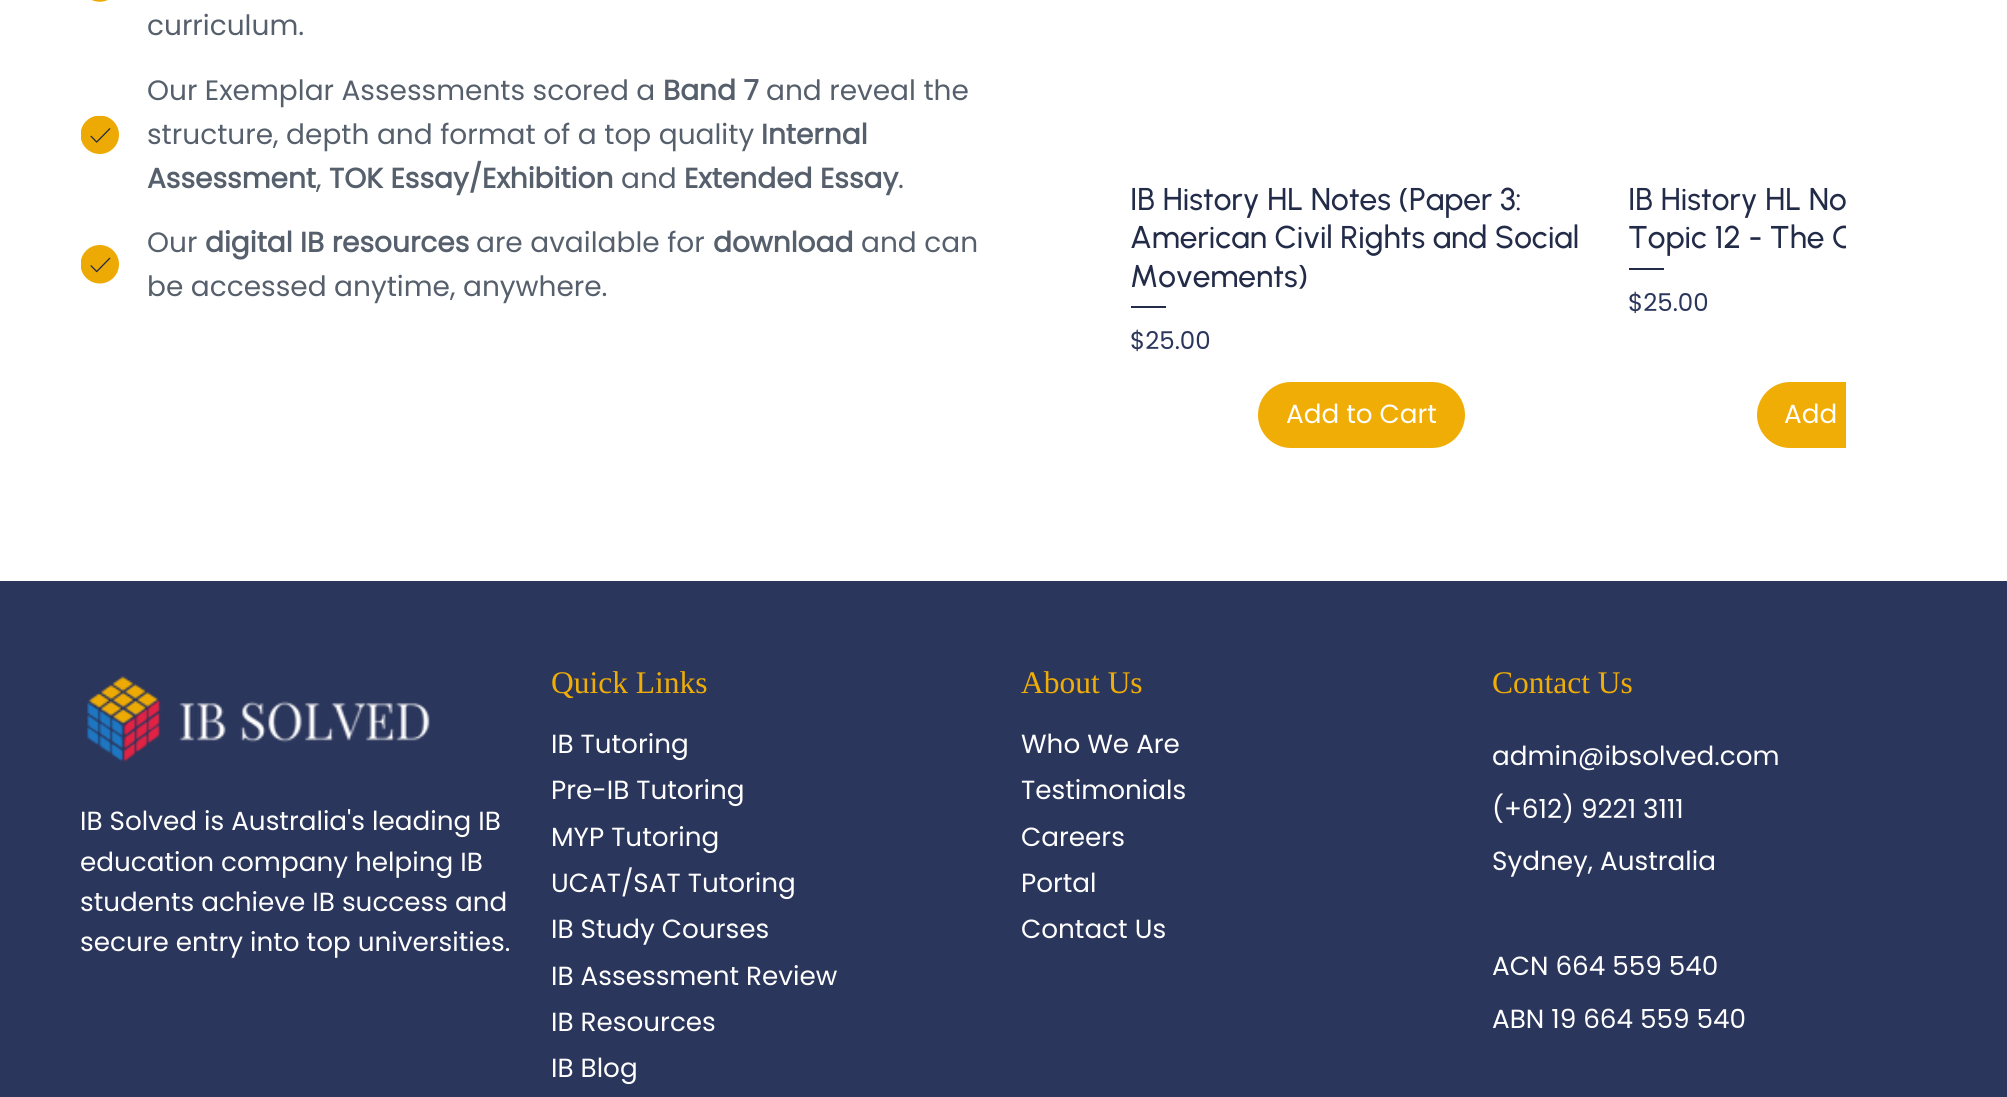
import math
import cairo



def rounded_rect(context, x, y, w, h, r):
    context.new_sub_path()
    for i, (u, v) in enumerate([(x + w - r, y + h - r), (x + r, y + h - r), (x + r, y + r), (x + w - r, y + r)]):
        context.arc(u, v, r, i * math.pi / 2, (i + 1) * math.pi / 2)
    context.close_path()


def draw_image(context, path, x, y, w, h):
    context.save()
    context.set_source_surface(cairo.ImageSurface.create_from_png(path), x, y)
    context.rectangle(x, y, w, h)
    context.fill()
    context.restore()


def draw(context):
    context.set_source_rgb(1, 1, 1)
    context.paint()
    draw_image(context, "images/1.png", 92, 0, 16, 2)
    draw_image(context, "images/2.png", 81, 116, 38, 38)
    draw_image(context, "images/3.png", 81, 245, 38, 39)
    context.set_source_rgb(34 / 255, 43 / 255, 72 / 255)
    context.rectangle(1131, 306, 35, 2)
    context.fill()
    context.set_source_rgb(240 / 255, 173 / 255, 5 / 255)
    rounded_rect(context, 1258, 382, 207, 66, 33)
    context.fill()
    context.set_source_rgb(34 / 255, 43 / 255, 72 / 255)
    context.rectangle(1629, 268, 35, 2)
    context.fill()
    context.set_source_rgb(240 / 255, 173 / 255, 5 / 255)
    context.new_path()
    context.move_to(1790, 382)
    context.line_to(1846, 382)
    context.line_to(1846, 448)
    context.line_to(1790, 448)
    context.curve_to(1772, 448, 1757, 433, 1757, 415)
    context.curve_to(1757, 397, 1772, 382, 1790, 382)
    context.close_path()
    context.fill()
    context.set_source_rgb(43 / 255, 54 / 255, 92 / 255)
    context.rectangle(0, 581, 2007, 516)
    context.fill()
    draw_image(context, "images/4.png", 86, 676, 344, 86)
    context.select_font_face("Poppins")
    context.set_font_size(28)
    context.set_source_rgb(86 / 255, 95 / 255, 108 / 255)
    context.move_to(147, 35)
    context.show_text("curriculum.")
    context.move_to(147, 100)
    context.show_text("Our Exemplar Assessments scored a")
    context.select_font_face("Poppins", cairo.FontSlant.NORMAL, cairo.FontWeight.BOLD)
    context.move_to(663, 100)
    context.show_text("Band 7")
    context.select_font_face("Poppins")
    context.move_to(766, 100)
    context.show_text("and reveal the")
    context.move_to(147, 144)
    context.show_text("structure, depth and format of a top quality")
    context.select_font_face("Poppins", cairo.FontSlant.NORMAL, cairo.FontWeight.BOLD)
    context.move_to(761, 144)
    context.show_text("Internal")
    context.move_to(147, 188)
    context.show_text("Assessment")
    context.select_font_face("Poppins")
    context.move_to(316, 188)
    context.show_text(",")
    context.select_font_face("Poppins", cairo.FontSlant.NORMAL, cairo.FontWeight.BOLD)
    context.move_to(329, 188)
    context.show_text("TOK Essay/Exhibition")
    context.select_font_face("Poppins")
    context.move_to(621, 188)
    context.show_text("and")
    context.select_font_face("Poppins", cairo.FontSlant.NORMAL, cairo.FontWeight.BOLD)
    context.move_to(684, 188)
    context.show_text("Extended Essay")
    context.select_font_face("Poppins")
    context.move_to(898, 188)
    context.show_text(".")
    context.move_to(147, 252)
    context.show_text("Our")
    context.select_font_face("Poppins", cairo.FontSlant.NORMAL, cairo.FontWeight.BOLD)
    context.move_to(205, 252)
    context.show_text("digital IB resources")
    context.select_font_face("Poppins")
    context.move_to(476, 252)
    context.show_text("are available for")
    context.select_font_face("Poppins", cairo.FontSlant.NORMAL, cairo.FontWeight.BOLD)
    context.move_to(713, 252)
    context.show_text("download")
    context.select_font_face("Poppins")
    context.move_to(861, 252)
    context.show_text("and can")
    context.move_to(147, 296)
    context.show_text("be accessed anytime, anywhere.")
    context.select_font_face("Urbanist Medium")
    context.set_font_size(31.5)
    context.set_source_rgb(34 / 255, 43 / 255, 72 / 255)
    context.move_to(1130, 210)
    context.show_text("IB History HL Notes (Paper 3:")
    context.move_to(1130, 248)
    context.show_text("American Civil Rights and Social")
    context.move_to(1130, 287)
    context.show_text("Movements)")
    context.select_font_face("Poppins")
    context.set_font_size(24.5)
    context.set_source_rgb(43 / 255, 54 / 255, 92 / 255)
    context.move_to(1130, 349)
    context.show_text("$25.00")
    context.set_font_size(26.25)
    context.set_source_rgb(1, 1, 1)
    context.move_to(1286, 423)
    context.show_text("Add to Cart")
    context.select_font_face("Urbanist Medium")
    context.set_font_size(31.5)
    context.set_source_rgb(34 / 255, 43 / 255, 72 / 255)
    context.move_to(1628, 210)
    context.show_text("IB History HL No")
    context.save()
    context.rectangle(1131, 0, 715, 448)
    context.clip()
    context.move_to(1628, 248)
    context.show_text("Topic 12 - The C")
    context.restore()
    context.select_font_face("Poppins")
    context.set_font_size(24.5)
    context.set_source_rgb(43 / 255, 54 / 255, 92 / 255)
    context.move_to(1628, 311)
    context.show_text("$25.00")
    context.set_font_size(26.25)
    context.set_source_rgb(1, 1, 1)
    context.move_to(1784, 423)
    context.show_text("Add")
    context.move_to(80, 830)
    context.show_text("IB Solved is Australia's leading IB")
    context.move_to(80, 871)
    context.show_text("education company helping IB")
    context.move_to(80, 911)
    context.show_text("students achieve IB success and")
    context.move_to(80, 951)
    context.show_text("secure entry into top universities.")
    context.select_font_face("Liberation Serif")
    context.set_font_size(31.5)
    context.set_source_rgb(240 / 255, 173 / 255, 5 / 255)
    context.move_to(551, 693)
    context.show_text("Quick Links")
    context.select_font_face("Poppins")
    context.set_font_size(26.25)
    context.set_source_rgb(1, 1, 1)
    context.move_to(551, 753)
    context.show_text("IB Tutoring")
    context.move_to(551, 799)
    context.show_text("Pre-IB Tutoring")
    context.move_to(551, 846)
    context.show_text("MYP Tutoring")
    context.move_to(551, 892)
    context.show_text("UCAT/SAT Tutoring")
    context.move_to(551, 938)
    context.show_text("IB Study Courses")
    context.move_to(551, 985)
    context.show_text("IB Assessment Review")
    context.move_to(551, 1031)
    context.show_text("IB Resources")
    context.move_to(551, 1077)
    context.show_text("IB Blog")
    context.select_font_face("Liberation Serif")
    context.set_font_size(31.5)
    context.set_source_rgb(240 / 255, 173 / 255, 5 / 255)
    context.move_to(1021, 693)
    context.show_text("About Us")
    context.select_font_face("Poppins")
    context.set_font_size(26.25)
    context.set_source_rgb(1, 1, 1)
    context.move_to(1021, 753)
    context.show_text("Who We Are")
    context.move_to(1021, 799)
    context.show_text("Testimonials")
    context.move_to(1021, 846)
    context.show_text("Careers")
    context.move_to(1021, 892)
    context.show_text("Portal")
    context.move_to(1021, 938)
    context.show_text("Contact Us")
    context.select_font_face("Liberation Serif")
    context.set_font_size(31.5)
    context.set_source_rgb(240 / 255, 173 / 255, 5 / 255)
    context.move_to(1492, 693)
    context.show_text("Contact Us")
    context.select_font_face("Poppins")
    context.set_font_size(26.25)
    context.set_source_rgb(1, 1, 1)
    context.move_to(1492, 765)
    context.show_text("admin@ibsolved.com")
    context.move_to(1492, 818)
    context.show_text("(+612) 9221 3111")
    context.move_to(1492, 870)
    context.show_text("Sydney, Australia")
    context.move_to(1492, 975)
    context.show_text("ACN 664 559 540")
    context.move_to(1492, 1028)
    context.show_text("ABN 19 664 559 540")


surface = cairo.ImageSurface(cairo.Format.RGB24, 2007, 1097)
context = cairo.Context(surface)
options = cairo.FontOptions()
options.set_hint_metrics(cairo.HintMetrics.OFF)
options.set_hint_style(cairo.HintStyle.NONE)
context.set_font_options(options)
context.set_miter_limit(4)
draw(context)
surface.write_to_png("out.png")
